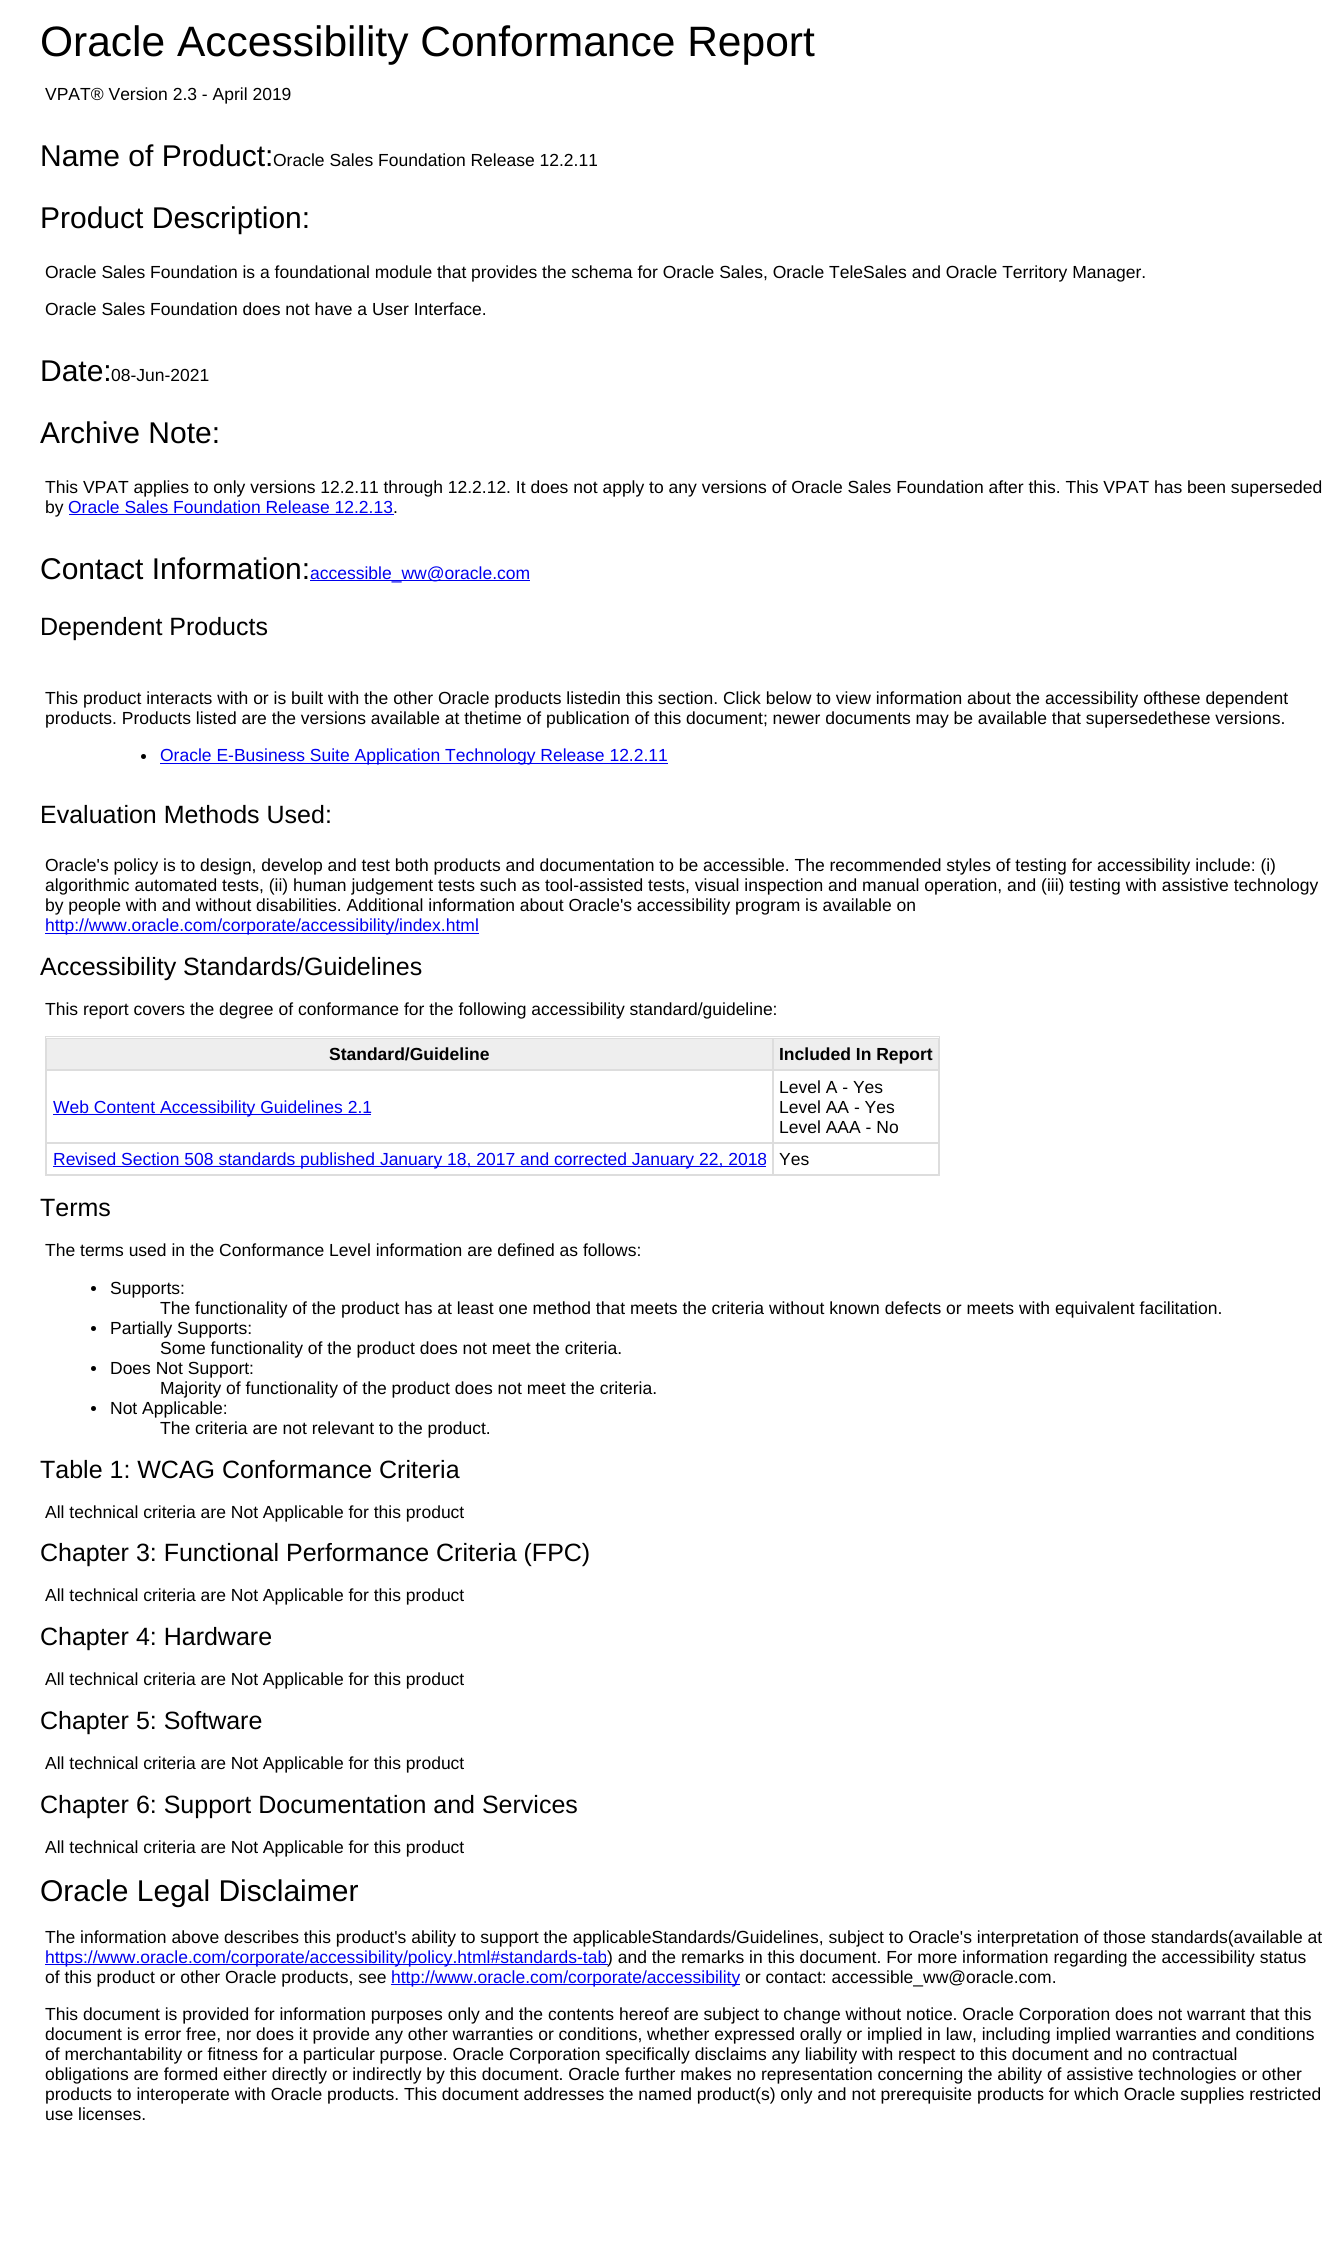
import math
import cairo



def draw(context):
    context.set_source_rgb(1, 1, 1)
    context.paint()
    context.set_source_rgb(0, 0, 238 / 255)
    context.rectangle(69, 514, 325, 1)
    context.fill()
    context.rectangle(310, 580, 220, 1)
    context.fill()
    context.set_source_rgb(0, 0, 0)
    context.arc(143.5, 756.5, 2.5, 0, 2 * math.pi)
    context.fill()
    context.set_source_rgb(0, 0, 238 / 255)
    context.rectangle(160, 763, 508, 1)
    context.fill()
    context.rectangle(45, 933, 434, 1)
    context.fill()
    context.rectangle(45.5, 1036.5, 894, 139)
    context.set_source_rgb(221 / 255, 221 / 255, 221 / 255)
    context.set_line_width(1)
    context.stroke()
    context.set_source_rgb(238 / 255, 238 / 255, 238 / 255)
    context.rectangle(46.5, 1038.5, 726, 31)
    context.fill_preserve()
    context.set_source_rgb(221 / 255, 221 / 255, 221 / 255)
    context.stroke()
    context.set_source_rgb(238 / 255, 238 / 255, 238 / 255)
    context.rectangle(773.5, 1038.5, 165, 31)
    context.fill_preserve()
    context.set_source_rgb(221 / 255, 221 / 255, 221 / 255)
    context.stroke()
    context.rectangle(46.5, 1070.5, 726, 72)
    context.stroke()
    context.set_source_rgb(0, 0, 238 / 255)
    context.rectangle(53, 1114, 318, 1)
    context.fill()
    context.rectangle(773.5, 1070.5, 165, 72)
    context.set_source_rgb(221 / 255, 221 / 255, 221 / 255)
    context.stroke()
    context.rectangle(46.5, 1143.5, 726, 31)
    context.stroke()
    context.set_source_rgb(0, 0, 238 / 255)
    context.rectangle(53, 1166, 713, 1)
    context.fill()
    context.rectangle(773.5, 1143.5, 165, 31)
    context.set_source_rgb(221 / 255, 221 / 255, 221 / 255)
    context.stroke()
    context.set_source_rgb(0, 0, 0)
    context.arc(93.5, 1288.5, 2.5, 0, 2 * math.pi)
    context.fill()
    context.arc(93.5, 1328.5, 2.5, 0, 2 * math.pi)
    context.fill()
    context.arc(93.5, 1368.5, 2.5, 0, 2 * math.pi)
    context.fill()
    context.arc(93.5, 1408.5, 2.5, 0, 2 * math.pi)
    context.fill()
    context.set_source_rgb(0, 0, 238 / 255)
    context.rectangle(45, 1964, 563, 1)
    context.fill()
    context.rectangle(391, 1984, 349, 1)
    context.fill()
    context.select_font_face("Liberation Sans")
    context.set_font_size(42.5)
    context.set_source_rgb(0, 0, 0)
    context.move_to(40, 56)
    context.show_text("Oracle Accessibility Conformance Report")
    context.set_font_size(17.5)
    context.move_to(45, 100)
    context.show_text("VPAT® Version 2.3 - April 2019")
    context.set_font_size(30)
    context.move_to(40, 166)
    context.show_text("Name of Product:")
    context.set_font_size(17.5)
    context.move_to(273, 166)
    context.show_text("Oracle Sales Foundation Release 12.2.11")
    context.set_font_size(30)
    context.move_to(40, 228)
    context.show_text("Product Description:")
    context.set_font_size(17.5)
    context.move_to(45, 278)
    context.show_text("Oracle Sales Foundation is a foundational module that provides the schema for Oracle Sales, Oracle TeleSales and Oracle Territory Manager.")
    context.move_to(45, 315)
    context.show_text("Oracle Sales Foundation does not have a User Interface.")
    context.set_font_size(30)
    context.move_to(40, 381)
    context.show_text("Date:")
    context.set_font_size(17.5)
    context.move_to(111, 381)
    context.show_text("08-Jun-2021")
    context.set_font_size(30)
    context.move_to(40, 443)
    context.show_text("Archive Note:")
    context.set_font_size(17.5)
    context.move_to(45, 493)
    context.show_text("This VPAT applies to only versions 12.2.11 through 12.2.12. It does not apply to any versions of Oracle Sales Foundation after this. This VPAT has been superseded")
    context.move_to(45, 513)
    context.show_text("by")
    context.set_source_rgb(0, 0, 238 / 255)
    context.move_to(68, 513)
    context.show_text("Oracle Sales Foundation Release 12.2.13")
    context.set_source_rgb(0, 0, 0)
    context.move_to(393, 513)
    context.show_text(".")
    context.set_font_size(30)
    context.move_to(40, 579)
    context.show_text("Contact Information:")
    context.set_font_size(17.5)
    context.set_source_rgb(0, 0, 238 / 255)
    context.move_to(310, 579)
    context.show_text("accessible_ww@oracle.com")
    context.set_font_size(25)
    context.set_source_rgb(0, 0, 0)
    context.move_to(40, 635)
    context.show_text("Dependent Products")
    context.set_font_size(17.5)
    context.move_to(45, 704)
    context.show_text("This product interacts with or is built with the other Oracle products listedin this section. Click below to view information about the accessibility ofthese dependent")
    context.move_to(45, 724)
    context.show_text("products. Products listed are the versions available at thetime of publication of this document; newer documents may be available that supersedethese versions.")
    context.set_source_rgb(0, 0, 238 / 255)
    context.move_to(160, 761)
    context.show_text("Oracle E-Business Suite Application Technology Release 12.2.11")
    context.set_font_size(25)
    context.set_source_rgb(0, 0, 0)
    context.move_to(40, 823)
    context.show_text("Evaluation Methods Used:")
    context.set_font_size(17.5)
    context.move_to(45, 871)
    context.show_text("Oracle's policy is to design, develop and test both products and documentation to be accessible. The recommended styles of testing for accessibility include: (i)")
    context.move_to(45, 891)
    context.show_text("algorithmic automated tests, (ii) human judgement tests such as tool-assisted tests, visual inspection and manual operation, and (iii) testing with assistive technology")
    context.move_to(45, 911)
    context.show_text("by people with and without disabilities. Additional information about Oracle's accessibility program is available on")
    context.set_source_rgb(0, 0, 238 / 255)
    context.move_to(45, 931)
    context.show_text("http://www.oracle.com/corporate/accessibility/index.html")
    context.set_font_size(25)
    context.set_source_rgb(0, 0, 0)
    context.move_to(40, 975)
    context.show_text("Accessibility Standards/Guidelines")
    context.set_font_size(17.5)
    context.move_to(45, 1015)
    context.show_text("This report covers the degree of conformance for the following accessibility standard/guideline:")
    context.select_font_face("Liberation Sans", cairo.FontSlant.NORMAL, cairo.FontWeight.BOLD)
    context.move_to(329, 1060)
    context.show_text("Standard/Guideline")
    context.move_to(779, 1060)
    context.show_text("Included In Report")
    context.select_font_face("Liberation Sans")
    context.set_source_rgb(0, 0, 238 / 255)
    context.move_to(53, 1113)
    context.show_text("Web Content Accessibility Guidelines 2.1")
    context.set_source_rgb(0, 0, 0)
    context.move_to(779, 1093)
    context.show_text("Level A - Yes")
    context.move_to(779, 1113)
    context.show_text("Level AA - Yes")
    context.move_to(779, 1133)
    context.show_text("Level AAA - No")
    context.set_source_rgb(0, 0, 238 / 255)
    context.move_to(53, 1165)
    context.show_text("Revised Section 508 standards published January 18, 2017 and corrected January 22, 2018")
    context.set_source_rgb(0, 0, 0)
    context.move_to(779, 1165)
    context.show_text("Yes")
    context.set_font_size(25)
    context.move_to(40, 1216)
    context.show_text("Terms")
    context.set_font_size(17.5)
    context.move_to(45, 1256)
    context.show_text("The terms used in the Conformance Level information are defined as follows:")
    context.move_to(110, 1294)
    context.show_text("Supports:")
    context.move_to(160, 1314)
    context.show_text("The functionality of the product has at least one method that meets the criteria without known defects or meets with equivalent facilitation.")
    context.move_to(110, 1334)
    context.show_text("Partially Supports:")
    context.move_to(160, 1354)
    context.show_text("Some functionality of the product does not meet the criteria.")
    context.move_to(110, 1374)
    context.show_text("Does Not Support:")
    context.move_to(160, 1394)
    context.show_text("Majority of functionality of the product does not meet the criteria.")
    context.move_to(110, 1414)
    context.show_text("Not Applicable:")
    context.move_to(160, 1434)
    context.show_text("The criteria are not relevant to the product.")
    context.set_font_size(25)
    context.move_to(40, 1478)
    context.show_text("Table 1: WCAG Conformance Criteria")
    context.set_font_size(17.5)
    context.move_to(45, 1518)
    context.show_text("All technical criteria are Not Applicable for this product")
    context.set_font_size(25)
    context.move_to(40, 1561)
    context.show_text("Chapter 3: Functional Performance Criteria (FPC)")
    context.set_font_size(17.5)
    context.move_to(45, 1601)
    context.show_text("All technical criteria are Not Applicable for this product")
    context.set_font_size(25)
    context.move_to(40, 1645)
    context.show_text("Chapter 4: Hardware")
    context.set_font_size(17.5)
    context.move_to(45, 1685)
    context.show_text("All technical criteria are Not Applicable for this product")
    context.set_font_size(25)
    context.move_to(40, 1729)
    context.show_text("Chapter 5: Software")
    context.set_font_size(17.5)
    context.move_to(45, 1769)
    context.show_text("All technical criteria are Not Applicable for this product")
    context.set_font_size(25)
    context.move_to(40, 1813)
    context.show_text("Chapter 6: Support Documentation and Services")
    context.set_font_size(17.5)
    context.move_to(45, 1853)
    context.show_text("All technical criteria are Not Applicable for this product")
    context.set_font_size(30)
    context.move_to(40, 1901)
    context.show_text("Oracle Legal Disclaimer")
    context.set_font_size(17.5)
    context.move_to(45, 1943)
    context.show_text("The information above describes this product's ability to support the applicableStandards/Guidelines, subject to Oracle's interpretation of those standards(available at")
    context.set_source_rgb(0, 0, 238 / 255)
    context.move_to(45, 1963)
    context.show_text("https://www.oracle.com/corporate/accessibility/policy.html#standards-tab")
    context.set_source_rgb(0, 0, 0)
    context.move_to(607, 1963)
    context.show_text(") and the remarks in this document. For more information regarding the accessibility status")
    context.move_to(45, 1983)
    context.show_text("of this product or other Oracle products, see")
    context.set_source_rgb(0, 0, 238 / 255)
    context.move_to(391, 1983)
    context.show_text("http://www.oracle.com/corporate/accessibility")
    context.set_source_rgb(0, 0, 0)
    context.move_to(745, 1983)
    context.show_text("or contact: accessible_ww@oracle.com.")
    context.move_to(45, 2020)
    context.show_text("This document is provided for information purposes only and the contents hereof are subject to change without notice. Oracle Corporation does not warrant that this")
    context.move_to(45, 2040)
    context.show_text("document is error free, nor does it provide any other warranties or conditions, whether expressed orally or implied in law, including implied warranties and conditions")
    context.move_to(45, 2060)
    context.show_text("of merchantability or fitness for a particular purpose. Oracle Corporation specifically disclaims any liability with respect to this document and no contractual")
    context.move_to(45, 2080)
    context.show_text("obligations are formed either directly or indirectly by this document. Oracle further makes no representation concerning the ability of assistive technologies or other")
    context.move_to(45, 2100)
    context.show_text("products to interoperate with Oracle products. This document addresses the named product(s) only and not prerequisite products for which Oracle supplies restricted")
    context.move_to(45, 2120)
    context.show_text("use licenses.")


surface = cairo.ImageSurface(cairo.Format.RGB24, 1332, 2243)
context = cairo.Context(surface)
options = cairo.FontOptions()
options.set_hint_metrics(cairo.HintMetrics.OFF)
options.set_hint_style(cairo.HintStyle.NONE)
context.set_font_options(options)
context.set_miter_limit(4)
draw(context)
surface.write_to_png("out.png")
